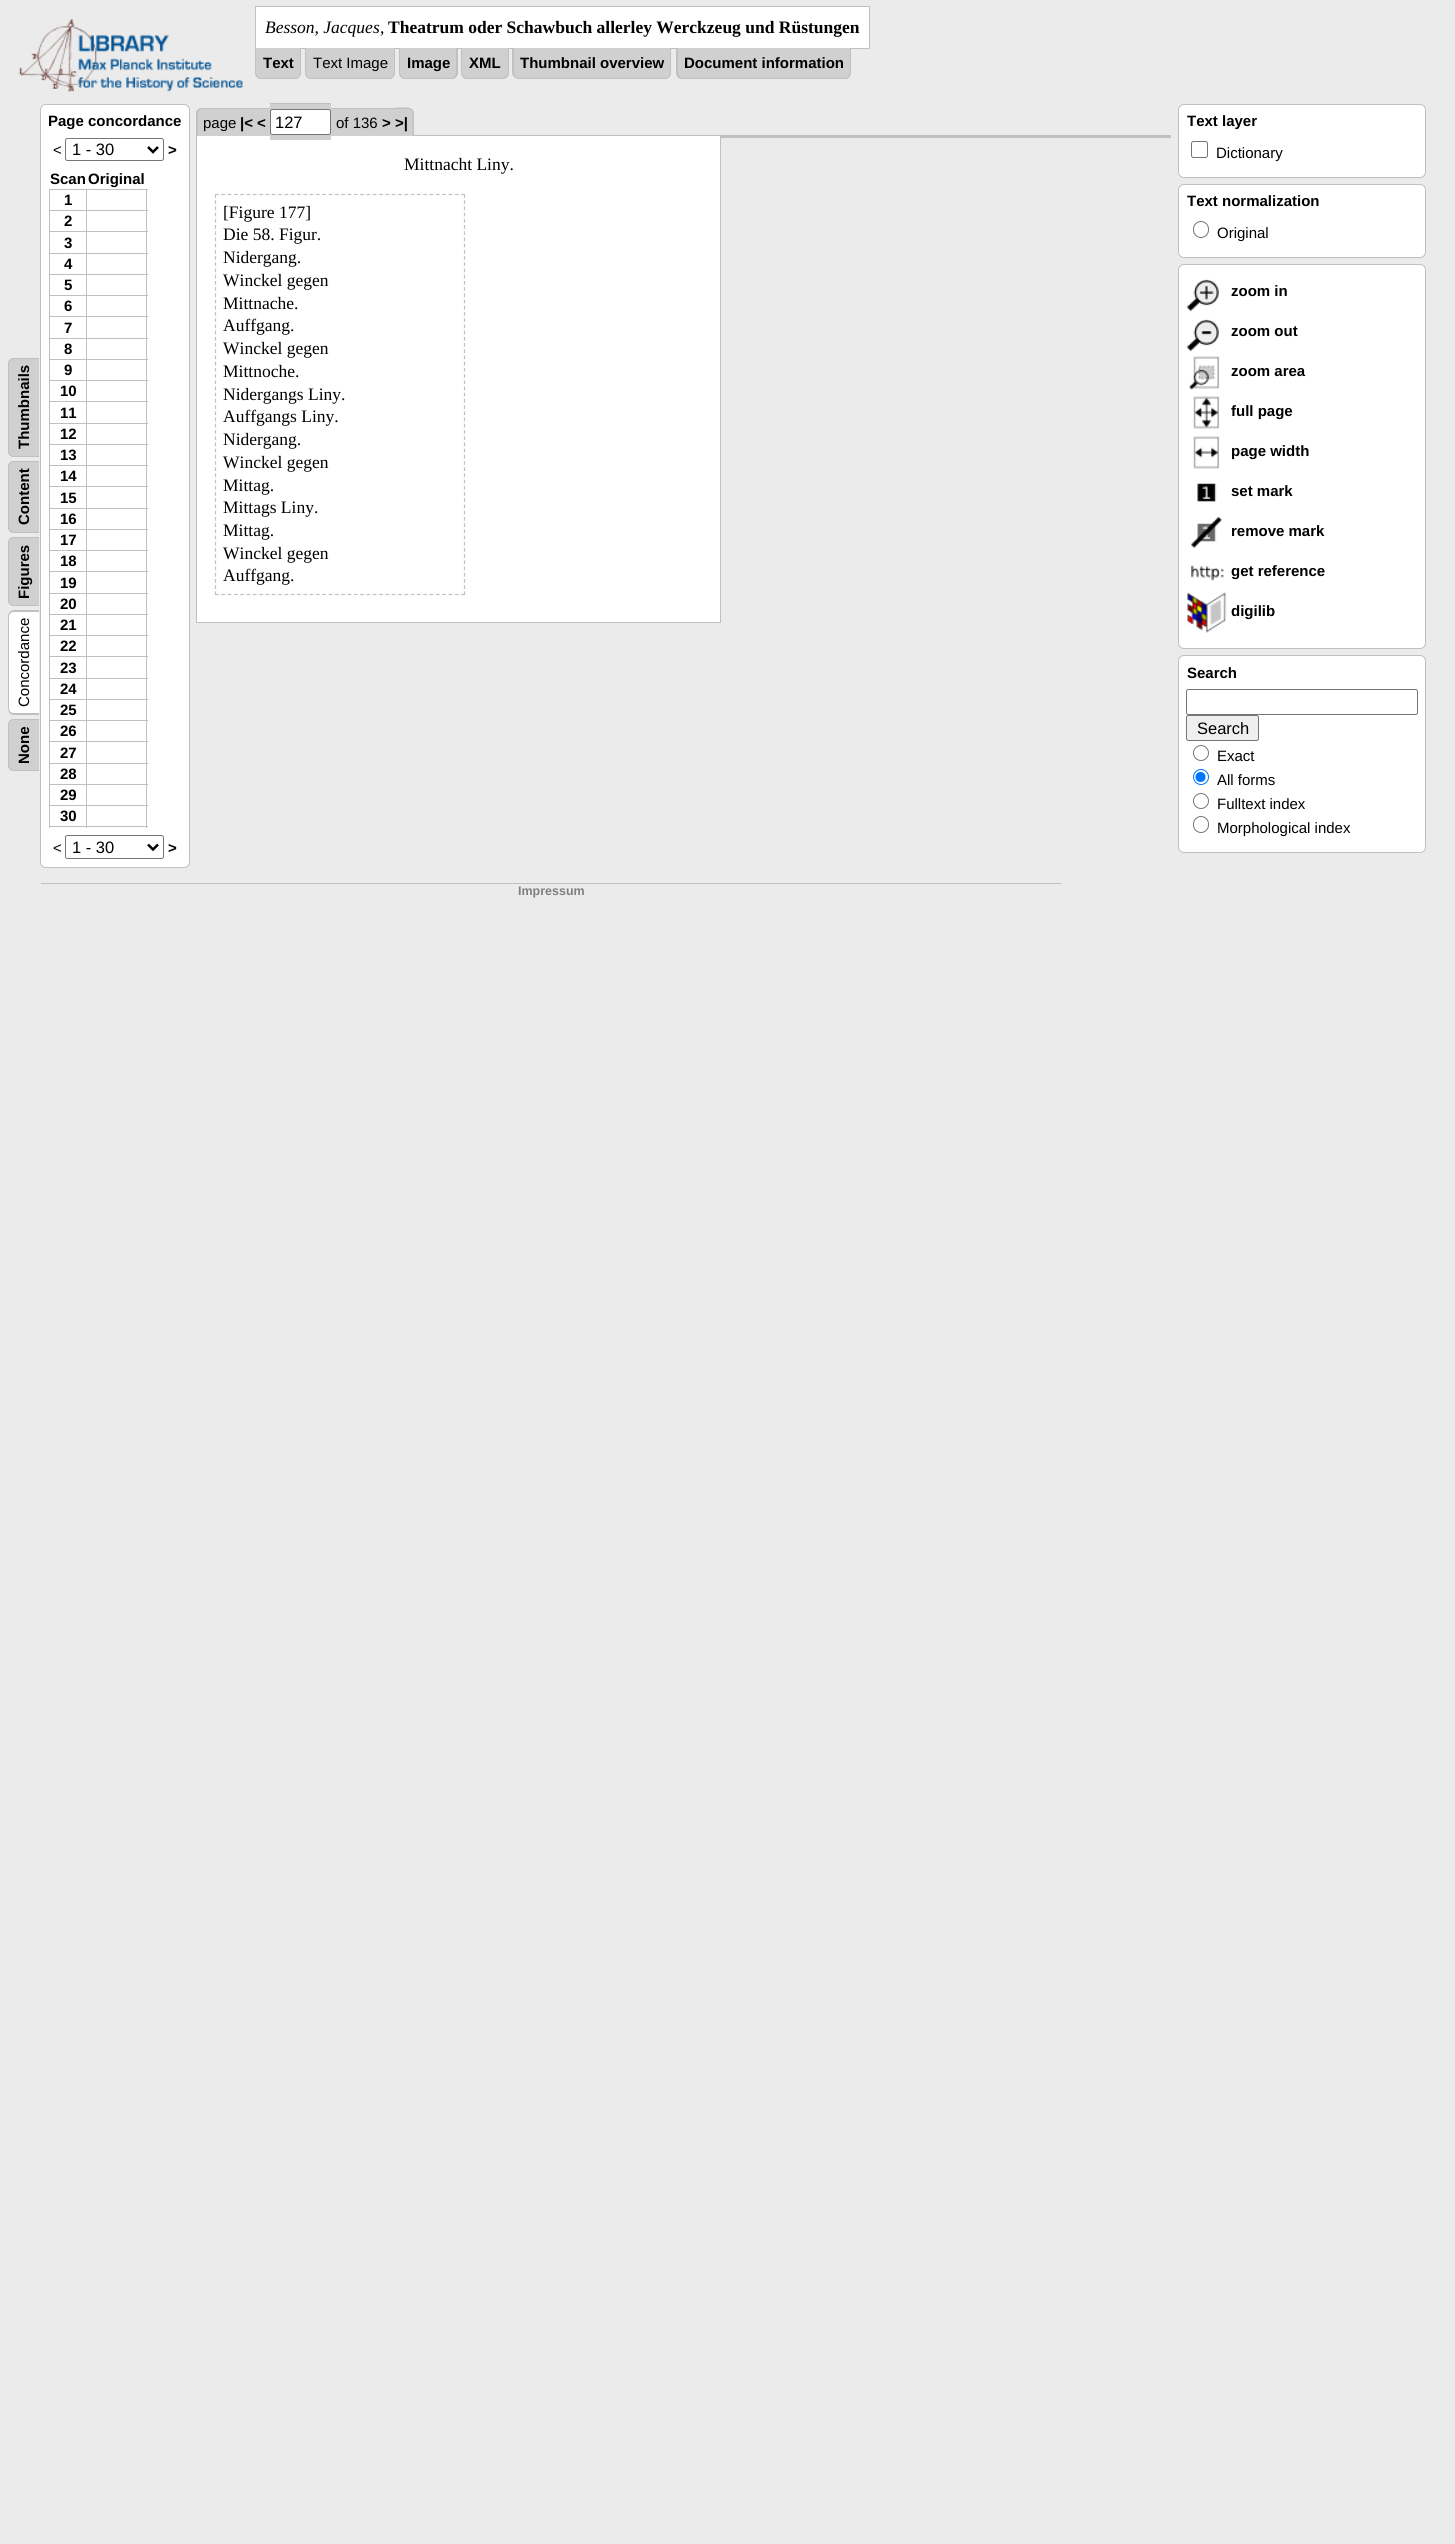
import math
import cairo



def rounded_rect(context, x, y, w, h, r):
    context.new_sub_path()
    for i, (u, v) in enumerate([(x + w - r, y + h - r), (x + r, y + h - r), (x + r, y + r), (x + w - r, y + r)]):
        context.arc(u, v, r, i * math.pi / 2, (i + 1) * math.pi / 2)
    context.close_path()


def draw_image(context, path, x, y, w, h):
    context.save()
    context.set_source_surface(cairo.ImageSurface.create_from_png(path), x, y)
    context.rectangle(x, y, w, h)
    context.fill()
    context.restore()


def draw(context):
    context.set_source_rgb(235 / 255, 235 / 255, 235 / 255)
    context.paint()
    draw_image(context, "images/1.png", 18, 18, 225, 74)
    context.set_source_rgb(1, 1, 1)
    context.rectangle(255.5, 6.5, 614, 42)
    context.fill_preserve()
    context.set_source_rgb(192 / 255, 192 / 255, 192 / 255)
    context.set_line_width(1)
    context.stroke()
    context.set_source_rgb(208 / 255, 208 / 255, 208 / 255)
    context.new_path()
    context.move_to(255, 48)
    context.line_to(301, 48)
    context.line_to(301, 73)
    context.curve_to(301, 76.5, 298.5, 79, 295, 79)
    context.line_to(261, 79)
    context.curve_to(257.5, 79, 255, 76.5, 255, 73)
    context.close_path()
    context.fill()
    context.set_source_rgb(192 / 255, 192 / 255, 192 / 255)
    context.set_fill_rule(cairo.FillRule.EVEN_ODD)
    context.new_path()
    context.move_to(255, 48)
    context.line_to(301, 48)
    context.line_to(301, 72)
    context.curve_to(301, 76, 298, 79, 295, 79)
    context.line_to(261, 79)
    context.curve_to(258, 79, 255, 76, 255, 72)
    context.close_path()
    context.move_to(256, 48)
    context.line_to(300, 48)
    context.line_to(300, 72)
    context.curve_to(300, 75, 298, 78, 295, 78)
    context.line_to(261, 78)
    context.curve_to(258, 78, 256, 75, 256, 72)
    context.close_path()
    context.fill()
    context.set_source_rgb(208 / 255, 208 / 255, 208 / 255)
    context.new_path()
    context.move_to(305, 48)
    context.line_to(395, 48)
    context.line_to(395, 73)
    context.curve_to(395, 76.5, 392.5, 79, 389, 79)
    context.line_to(311, 79)
    context.curve_to(307.5, 79, 305, 76.5, 305, 73)
    context.close_path()
    context.fill()
    context.set_source_rgb(192 / 255, 192 / 255, 192 / 255)
    context.new_path()
    context.move_to(305, 48)
    context.line_to(395, 48)
    context.line_to(395, 72)
    context.curve_to(395, 76, 392, 79, 389, 79)
    context.line_to(311, 79)
    context.curve_to(308, 79, 305, 76, 305, 72)
    context.close_path()
    context.move_to(306, 48)
    context.line_to(394, 48)
    context.line_to(394, 72)
    context.curve_to(394, 75, 392, 78, 389, 78)
    context.line_to(311, 78)
    context.curve_to(308, 78, 306, 75, 306, 72)
    context.close_path()
    context.fill()
    context.set_source_rgb(208 / 255, 208 / 255, 208 / 255)
    context.new_path()
    context.move_to(399, 48)
    context.line_to(458, 48)
    context.line_to(458, 73)
    context.curve_to(458, 76.5, 455.5, 79, 452, 79)
    context.line_to(405, 79)
    context.curve_to(401.5, 79, 399, 76.5, 399, 73)
    context.close_path()
    context.fill()
    context.set_source_rgb(192 / 255, 192 / 255, 192 / 255)
    context.new_path()
    context.move_to(399, 48)
    context.line_to(458, 48)
    context.line_to(458, 72)
    context.curve_to(458, 76, 455, 79, 451, 79)
    context.line_to(405, 79)
    context.curve_to(402, 79, 399, 76, 399, 72)
    context.close_path()
    context.move_to(400, 48)
    context.line_to(456, 48)
    context.line_to(456, 72)
    context.curve_to(456, 75, 454, 78, 451, 78)
    context.line_to(405, 78)
    context.curve_to(402, 78, 400, 75, 400, 72)
    context.close_path()
    context.fill()
    context.set_source_rgb(208 / 255, 208 / 255, 208 / 255)
    context.new_path()
    context.move_to(461, 48)
    context.line_to(509, 48)
    context.line_to(509, 73)
    context.curve_to(509, 76.5, 506.5, 79, 503, 79)
    context.line_to(467, 79)
    context.curve_to(463.5, 79, 461, 76.5, 461, 73)
    context.close_path()
    context.fill()
    context.set_source_rgb(192 / 255, 192 / 255, 192 / 255)
    context.new_path()
    context.move_to(461, 48)
    context.line_to(509, 48)
    context.line_to(509, 72)
    context.curve_to(509, 76, 506, 79, 502, 79)
    context.line_to(468, 79)
    context.curve_to(464, 79, 461, 76, 461, 72)
    context.close_path()
    context.move_to(462, 48)
    context.line_to(508, 48)
    context.line_to(508, 72)
    context.curve_to(508, 75, 505, 78, 502, 78)
    context.line_to(468, 78)
    context.curve_to(465, 78, 462, 75, 462, 72)
    context.close_path()
    context.fill()
    context.set_source_rgb(208 / 255, 208 / 255, 208 / 255)
    context.new_path()
    context.move_to(513, 48)
    context.line_to(671, 48)
    context.line_to(671, 73)
    context.curve_to(671, 76.5, 668.5, 79, 665, 79)
    context.line_to(519, 79)
    context.curve_to(515.5, 79, 513, 76.5, 513, 73)
    context.close_path()
    context.fill()
    context.set_source_rgb(192 / 255, 192 / 255, 192 / 255)
    context.new_path()
    context.move_to(512, 48)
    context.line_to(671, 48)
    context.line_to(671, 72)
    context.curve_to(671, 76, 668, 79, 665, 79)
    context.line_to(519, 79)
    context.curve_to(515, 79, 512, 76, 512, 72)
    context.close_path()
    context.move_to(514, 48)
    context.line_to(670, 48)
    context.line_to(670, 72)
    context.curve_to(670, 75, 668, 78, 665, 78)
    context.line_to(519, 78)
    context.curve_to(516, 78, 514, 75, 514, 72)
    context.close_path()
    context.fill()
    context.set_source_rgb(208 / 255, 208 / 255, 208 / 255)
    context.new_path()
    context.move_to(676, 48)
    context.line_to(851, 48)
    context.line_to(851, 73)
    context.curve_to(851, 76.5, 848.5, 79, 845, 79)
    context.line_to(682, 79)
    context.curve_to(678.5, 79, 676, 76.5, 676, 73)
    context.close_path()
    context.fill()
    context.set_source_rgb(192 / 255, 192 / 255, 192 / 255)
    context.new_path()
    context.move_to(676, 48)
    context.line_to(851, 48)
    context.line_to(851, 72)
    context.curve_to(851, 76, 848, 79, 845, 79)
    context.line_to(682, 79)
    context.curve_to(679, 79, 676, 76, 676, 72)
    context.close_path()
    context.move_to(678, 48)
    context.line_to(850, 48)
    context.line_to(850, 72)
    context.curve_to(850, 75, 848, 78, 845, 78)
    context.line_to(682, 78)
    context.curve_to(680, 78, 678, 75, 678, 72)
    context.close_path()
    context.fill()
    context.set_source_rgb(208 / 255, 208 / 255, 208 / 255)
    context.set_fill_rule(cairo.FillRule.WINDING)
    context.new_path()
    context.move_to(8, 451)
    context.line_to(8, 364)
    context.curve_to(8, 361, 10, 358, 14, 358)
    context.line_to(39, 358)
    context.line_to(39, 457)
    context.line_to(14, 457)
    context.curve_to(10, 457, 8, 454, 8, 451)
    context.close_path()
    context.fill()
    context.set_source_rgb(192 / 255, 192 / 255, 192 / 255)
    context.set_fill_rule(cairo.FillRule.EVEN_ODD)
    context.new_path()
    context.move_to(8, 451)
    context.line_to(8, 364)
    context.curve_to(8, 361, 10, 358, 14, 358)
    context.line_to(39, 358)
    context.line_to(39, 457)
    context.line_to(14, 457)
    context.curve_to(10, 457, 8, 454, 8, 451)
    context.close_path()
    context.move_to(9, 451)
    context.line_to(9, 364)
    context.curve_to(9, 361, 11, 359, 14, 359)
    context.line_to(39, 359)
    context.line_to(39, 456)
    context.line_to(14, 456)
    context.curve_to(11, 456, 9, 453, 9, 451)
    context.close_path()
    context.fill()
    context.set_source_rgb(208 / 255, 208 / 255, 208 / 255)
    context.set_fill_rule(cairo.FillRule.WINDING)
    context.new_path()
    context.move_to(8, 527)
    context.line_to(8, 467)
    context.curve_to(8, 464, 10, 461, 14, 461)
    context.line_to(39, 461)
    context.line_to(39, 533)
    context.line_to(14, 533)
    context.curve_to(10, 533, 8, 530, 8, 527)
    context.close_path()
    context.fill()
    context.set_source_rgb(192 / 255, 192 / 255, 192 / 255)
    context.set_fill_rule(cairo.FillRule.EVEN_ODD)
    context.new_path()
    context.move_to(8, 527)
    context.line_to(8, 467)
    context.curve_to(8, 464, 10, 461, 14, 461)
    context.line_to(39, 461)
    context.line_to(39, 533)
    context.line_to(14, 533)
    context.curve_to(10, 533, 8, 530, 8, 527)
    context.close_path()
    context.move_to(9, 527)
    context.line_to(9, 467)
    context.curve_to(9, 465, 11, 462, 14, 462)
    context.line_to(39, 462)
    context.line_to(39, 532)
    context.line_to(14, 532)
    context.curve_to(11, 532, 9, 529, 9, 527)
    context.close_path()
    context.fill()
    context.set_source_rgb(208 / 255, 208 / 255, 208 / 255)
    context.set_fill_rule(cairo.FillRule.WINDING)
    context.new_path()
    context.move_to(8, 600)
    context.line_to(8, 543)
    context.curve_to(8, 540, 10, 537, 14, 537)
    context.line_to(39, 537)
    context.line_to(39, 606)
    context.line_to(14, 606)
    context.curve_to(10, 606, 8, 603, 8, 600)
    context.close_path()
    context.fill()
    context.set_source_rgb(192 / 255, 192 / 255, 192 / 255)
    context.set_fill_rule(cairo.FillRule.EVEN_ODD)
    context.new_path()
    context.move_to(8, 600)
    context.line_to(8, 543)
    context.curve_to(8, 540, 10, 537, 14, 537)
    context.line_to(39, 537)
    context.line_to(39, 606)
    context.line_to(14, 606)
    context.curve_to(10, 606, 8, 603, 8, 600)
    context.close_path()
    context.move_to(9, 600)
    context.line_to(9, 543)
    context.curve_to(9, 540, 11, 538, 14, 538)
    context.line_to(39, 538)
    context.line_to(39, 605)
    context.line_to(14, 605)
    context.curve_to(11, 605, 9, 603, 9, 600)
    context.close_path()
    context.fill()
    context.set_source_rgb(1, 1, 1)
    context.set_fill_rule(cairo.FillRule.WINDING)
    context.new_path()
    context.move_to(8, 708)
    context.line_to(8, 617)
    context.curve_to(8, 613, 10, 610, 14, 610)
    context.line_to(39, 610)
    context.line_to(39, 715)
    context.line_to(14, 715)
    context.curve_to(10, 715, 8, 712, 8, 708)
    context.close_path()
    context.fill()
    context.set_source_rgb(192 / 255, 192 / 255, 192 / 255)
    context.set_fill_rule(cairo.FillRule.EVEN_ODD)
    context.new_path()
    context.move_to(8, 708)
    context.line_to(8, 617)
    context.curve_to(8, 613, 10, 610, 14, 610)
    context.line_to(39, 610)
    context.line_to(39, 715)
    context.line_to(14, 715)
    context.curve_to(10, 715, 8, 712, 8, 708)
    context.close_path()
    context.move_to(9, 708)
    context.line_to(9, 617)
    context.curve_to(9, 614, 11, 612, 14, 612)
    context.line_to(39, 612)
    context.line_to(39, 713)
    context.line_to(14, 713)
    context.curve_to(11, 713, 9, 711, 9, 708)
    context.close_path()
    context.fill()
    context.set_source_rgb(208 / 255, 208 / 255, 208 / 255)
    context.set_fill_rule(cairo.FillRule.WINDING)
    context.new_path()
    context.move_to(8, 765)
    context.line_to(8, 725)
    context.curve_to(8, 722, 10, 719, 14, 719)
    context.line_to(39, 719)
    context.line_to(39, 771)
    context.line_to(14, 771)
    context.curve_to(10, 771, 8, 768, 8, 765)
    context.close_path()
    context.fill()
    context.set_source_rgb(192 / 255, 192 / 255, 192 / 255)
    context.set_fill_rule(cairo.FillRule.EVEN_ODD)
    context.new_path()
    context.move_to(8, 765)
    context.line_to(8, 725)
    context.curve_to(8, 722, 10, 719, 14, 719)
    context.line_to(39, 719)
    context.line_to(39, 771)
    context.line_to(14, 771)
    context.curve_to(10, 771, 8, 768, 8, 765)
    context.close_path()
    context.move_to(9, 765)
    context.line_to(9, 725)
    context.curve_to(9, 722, 11, 720, 14, 720)
    context.line_to(39, 720)
    context.line_to(39, 770)
    context.line_to(14, 770)
    context.curve_to(11, 770, 9, 768, 9, 765)
    context.close_path()
    context.fill()
    context.set_source_rgb(1, 1, 1)
    rounded_rect(context, 40.5, 104.5, 149, 763, 5.5)
    context.fill_preserve()
    context.set_source_rgb(192 / 255, 192 / 255, 192 / 255)
    context.stroke()
    rounded_rect(context, 65.5, 138.5, 98, 22, 2)
    context.set_source_rgb(118 / 255, 118 / 255, 118 / 255)
    context.stroke()
    context.new_path()
    context.move_to(148, 147)
    context.line_to(153, 152)
    context.line_to(158, 147)
    context.set_source_rgb(0, 0, 0)
    context.set_line_width(2.5)
    context.stroke()
    context.set_source_rgb(192 / 255, 192 / 255, 192 / 255)
    context.rectangle(86, 189, 62, 1)
    context.fill()
    context.rectangle(86, 210, 62, 1)
    context.fill()
    context.rectangle(86, 231, 62, 1)
    context.fill()
    context.rectangle(86, 253, 62, 1)
    context.fill()
    context.rectangle(86, 274, 62, 1)
    context.fill()
    context.rectangle(86, 295, 62, 1)
    context.fill()
    context.rectangle(86, 316, 62, 1)
    context.fill()
    context.rectangle(86, 338, 62, 1)
    context.fill()
    context.rectangle(86, 359, 62, 1)
    context.fill()
    context.rectangle(86, 380, 62, 1)
    context.fill()
    context.rectangle(86, 401, 62, 1)
    context.fill()
    context.rectangle(86, 423, 62, 1)
    context.fill()
    context.rectangle(86, 444, 62, 1)
    context.fill()
    context.rectangle(86, 465, 62, 1)
    context.fill()
    context.rectangle(86, 486, 62, 1)
    context.fill()
    context.rectangle(86, 508, 62, 1)
    context.fill()
    context.rectangle(86, 529, 62, 1)
    context.fill()
    context.rectangle(86, 550, 62, 1)
    context.fill()
    context.rectangle(86, 571, 62, 1)
    context.fill()
    context.rectangle(86, 593, 62, 1)
    context.fill()
    context.rectangle(86, 614, 62, 1)
    context.fill()
    context.rectangle(86, 635, 62, 1)
    context.fill()
    context.rectangle(86, 656, 62, 1)
    context.fill()
    context.rectangle(86, 678, 62, 1)
    context.fill()
    context.rectangle(86, 699, 62, 1)
    context.fill()
    context.rectangle(86, 720, 62, 1)
    context.fill()
    context.rectangle(86, 741, 62, 1)
    context.fill()
    context.rectangle(86, 763, 62, 1)
    context.fill()
    context.rectangle(86, 784, 62, 1)
    context.fill()
    context.rectangle(86, 805, 62, 1)
    context.fill()
    context.rectangle(146, 805, 1, 23)
    context.fill()
    context.rectangle(86, 826, 62, 1)
    context.fill()
    context.rectangle(86, 805, 1, 23)
    context.fill()
    context.rectangle(49, 805, 39, 1)
    context.fill()
    context.rectangle(86, 784, 1, 22)
    context.fill()
    context.rectangle(49, 784, 39, 1)
    context.fill()
    context.rectangle(86, 763, 1, 22)
    context.fill()
    context.rectangle(49, 763, 39, 1)
    context.fill()
    context.rectangle(86, 741, 1, 23)
    context.fill()
    context.rectangle(49, 741, 39, 1)
    context.fill()
    context.rectangle(86, 720, 1, 23)
    context.fill()
    context.rectangle(49, 720, 39, 1)
    context.fill()
    context.rectangle(86, 699, 1, 22)
    context.fill()
    context.rectangle(49, 699, 39, 1)
    context.fill()
    context.rectangle(86, 678, 1, 22)
    context.fill()
    context.rectangle(49, 678, 39, 1)
    context.fill()
    context.rectangle(86, 656, 1, 23)
    context.fill()
    context.rectangle(49, 656, 39, 1)
    context.fill()
    context.rectangle(86, 635, 1, 23)
    context.fill()
    context.rectangle(49, 635, 39, 1)
    context.fill()
    context.rectangle(86, 614, 1, 22)
    context.fill()
    context.rectangle(49, 614, 39, 1)
    context.fill()
    context.rectangle(86, 593, 1, 22)
    context.fill()
    context.rectangle(49, 593, 39, 1)
    context.fill()
    context.rectangle(86, 571, 1, 23)
    context.fill()
    context.rectangle(49, 571, 39, 1)
    context.fill()
    context.rectangle(86, 550, 1, 23)
    context.fill()
    context.rectangle(49, 550, 39, 1)
    context.fill()
    context.rectangle(86, 529, 1, 22)
    context.fill()
    context.rectangle(49, 529, 39, 1)
    context.fill()
    context.rectangle(86, 508, 1, 22)
    context.fill()
    context.rectangle(49, 508, 39, 1)
    context.fill()
    context.rectangle(86, 486, 1, 23)
    context.fill()
    context.rectangle(49, 486, 39, 1)
    context.fill()
    context.rectangle(86, 465, 1, 23)
    context.fill()
    context.rectangle(49, 465, 39, 1)
    context.fill()
    context.rectangle(86, 444, 1, 22)
    context.fill()
    context.rectangle(49, 444, 39, 1)
    context.fill()
    context.rectangle(86, 423, 1, 22)
    context.fill()
    context.rectangle(49, 423, 39, 1)
    context.fill()
    context.rectangle(86, 401, 1, 23)
    context.fill()
    context.rectangle(49, 401, 39, 1)
    context.fill()
    context.rectangle(86, 380, 1, 23)
    context.fill()
    context.rectangle(49, 380, 39, 1)
    context.fill()
    context.rectangle(86, 359, 1, 22)
    context.fill()
    context.rectangle(49, 359, 39, 1)
    context.fill()
    context.rectangle(86, 338, 1, 22)
    context.fill()
    context.rectangle(49, 338, 39, 1)
    context.fill()
    context.rectangle(86, 316, 1, 23)
    context.fill()
    context.rectangle(49, 316, 39, 1)
    context.fill()
    context.rectangle(86, 295, 1, 23)
    context.fill()
    context.rectangle(49, 295, 39, 1)
    context.fill()
    context.rectangle(86, 274, 1, 22)
    context.fill()
    context.rectangle(49, 274, 39, 1)
    context.fill()
    context.rectangle(86, 253, 1, 22)
    context.fill()
    context.rectangle(49, 253, 39, 1)
    context.fill()
    context.rectangle(86, 231, 1, 23)
    context.fill()
    context.rectangle(49, 231, 39, 1)
    context.fill()
    context.rectangle(86, 210, 1, 23)
    context.fill()
    context.rectangle(49, 210, 39, 1)
    context.fill()
    context.rectangle(86, 189, 1, 22)
    context.fill()
    context.rectangle(49, 189, 39, 1)
    context.fill()
    context.rectangle(49, 826, 39, 1)
    context.fill()
    context.rectangle(49, 805, 1, 23)
    context.fill()
    context.rectangle(49, 784, 1, 22)
    context.fill()
    context.rectangle(49, 763, 1, 22)
    context.fill()
    context.rectangle(49, 741, 1, 23)
    context.fill()
    context.rectangle(49, 720, 1, 23)
    context.fill()
    context.rectangle(49, 699, 1, 22)
    context.fill()
    context.rectangle(49, 678, 1, 22)
    context.fill()
    context.rectangle(49, 656, 1, 23)
    context.fill()
    context.rectangle(49, 635, 1, 23)
    context.fill()
    context.rectangle(49, 614, 1, 22)
    context.fill()
    context.rectangle(49, 593, 1, 22)
    context.fill()
    context.rectangle(49, 571, 1, 23)
    context.fill()
    context.rectangle(49, 550, 1, 23)
    context.fill()
    context.rectangle(49, 529, 1, 22)
    context.fill()
    context.rectangle(49, 508, 1, 22)
    context.fill()
    context.rectangle(49, 486, 1, 23)
    context.fill()
    context.rectangle(49, 465, 1, 23)
    context.fill()
    context.rectangle(49, 444, 1, 22)
    context.fill()
    context.rectangle(49, 423, 1, 22)
    context.fill()
    context.rectangle(49, 401, 1, 23)
    context.fill()
    context.rectangle(49, 380, 1, 23)
    context.fill()
    context.rectangle(49, 359, 1, 22)
    context.fill()
    context.rectangle(49, 338, 1, 22)
    context.fill()
    context.rectangle(49, 316, 1, 23)
    context.fill()
    context.rectangle(49, 295, 1, 23)
    context.fill()
    context.rectangle(49, 274, 1, 22)
    context.fill()
    context.rectangle(49, 253, 1, 22)
    context.fill()
    context.rectangle(49, 231, 1, 23)
    context.fill()
    context.rectangle(49, 210, 1, 23)
    context.fill()
    context.rectangle(49, 189, 1, 22)
    context.fill()
    context.rectangle(146, 784, 1, 22)
    context.fill()
    context.rectangle(146, 763, 1, 22)
    context.fill()
    context.rectangle(146, 741, 1, 23)
    context.fill()
    context.rectangle(146, 720, 1, 23)
    context.fill()
    context.rectangle(146, 699, 1, 22)
    context.fill()
    context.rectangle(146, 678, 1, 22)
    context.fill()
    context.rectangle(146, 656, 1, 23)
    context.fill()
    context.rectangle(146, 635, 1, 23)
    context.fill()
    context.rectangle(146, 614, 1, 22)
    context.fill()
    context.rectangle(146, 593, 1, 22)
    context.fill()
    context.rectangle(146, 571, 1, 23)
    context.fill()
    context.rectangle(146, 550, 1, 23)
    context.fill()
    context.rectangle(146, 529, 1, 22)
    context.fill()
    context.rectangle(146, 508, 1, 22)
    context.fill()
    context.rectangle(146, 486, 1, 23)
    context.fill()
    context.rectangle(146, 465, 1, 23)
    context.fill()
    context.rectangle(146, 444, 1, 22)
    context.fill()
    context.rectangle(146, 423, 1, 22)
    context.fill()
    context.rectangle(146, 401, 1, 23)
    context.fill()
    context.rectangle(146, 380, 1, 23)
    context.fill()
    context.rectangle(146, 359, 1, 22)
    context.fill()
    context.rectangle(146, 338, 1, 22)
    context.fill()
    context.rectangle(146, 316, 1, 23)
    context.fill()
    context.rectangle(146, 295, 1, 23)
    context.fill()
    context.rectangle(146, 274, 1, 22)
    context.fill()
    context.rectangle(146, 253, 1, 22)
    context.fill()
    context.rectangle(146, 231, 1, 23)
    context.fill()
    context.rectangle(146, 210, 1, 23)
    context.fill()
    context.rectangle(146, 189, 1, 22)
    context.fill()
    rounded_rect(context, 65.5, 835.5, 98, 23, 2)
    context.set_source_rgb(118 / 255, 118 / 255, 118 / 255)
    context.set_line_width(1)
    context.stroke()
    context.new_path()
    context.move_to(148, 844.5)
    context.line_to(153, 849.5)
    context.line_to(158, 844.5)
    context.set_source_rgb(0, 0, 0)
    context.set_line_width(2.5)
    context.stroke()
    context.set_source_rgb(1, 1, 1)
    context.rectangle(196.5, 135.5, 524, 487)
    context.fill_preserve()
    context.set_source_rgb(192 / 255, 192 / 255, 192 / 255)
    context.set_line_width(1)
    context.stroke()
    context.set_source_rgb(208 / 255, 208 / 255, 208 / 255)
    context.new_path()
    context.move_to(202, 108)
    context.line_to(240, 108)
    context.line_to(240, 136)
    context.line_to(196, 136)
    context.line_to(196, 114)
    context.curve_to(196, 110.5, 198.5, 108, 202, 108)
    context.close_path()
    context.fill()
    context.set_source_rgb(192 / 255, 192 / 255, 192 / 255)
    context.new_path()
    context.move_to(202, 108)
    context.line_to(240, 108)
    context.line_to(240, 136)
    context.line_to(196, 136)
    context.line_to(196, 114)
    context.curve_to(196, 110, 199, 108, 202, 108)
    context.close_path()
    context.move_to(202, 109)
    context.line_to(240, 109)
    context.line_to(240, 136)
    context.line_to(198, 136)
    context.line_to(198, 114)
    context.curve_to(198, 111, 200, 109, 202, 109)
    context.close_path()
    context.fill()
    context.set_source_rgb(208 / 255, 208 / 255, 208 / 255)
    context.rectangle(240, 109, 14, 27)
    context.fill()
    context.set_source_rgb(192 / 255, 192 / 255, 192 / 255)
    context.rectangle(240, 108, 14, 1)
    context.fill()
    context.set_source_rgb(208 / 255, 208 / 255, 208 / 255)
    context.rectangle(254, 108, 16, 28)
    context.fill()
    context.set_source_rgb(192 / 255, 192 / 255, 192 / 255)
    context.rectangle(254, 108, 16, 1)
    context.fill()
    context.set_source_rgb(208 / 255, 208 / 255, 208 / 255)
    context.rectangle(270, 104, 61, 36)
    context.fill()
    context.set_source_rgb(192 / 255, 192 / 255, 192 / 255)
    context.rectangle(270, 103, 61, 1)
    context.fill()
    context.set_source_rgb(208 / 255, 208 / 255, 208 / 255)
    context.rectangle(331, 108, 5, 28)
    context.fill()
    context.set_source_rgb(192 / 255, 192 / 255, 192 / 255)
    context.rectangle(331, 108, 59, 1)
    context.fill()
    context.set_source_rgb(208 / 255, 208 / 255, 208 / 255)
    context.rectangle(336, 109, 54, 27)
    context.fill()
    context.rectangle(390, 108, 5, 28)
    context.fill()
    context.set_source_rgb(192 / 255, 192 / 255, 192 / 255)
    context.rectangle(390, 108, 5, 1)
    context.fill()
    context.set_source_rgb(208 / 255, 208 / 255, 208 / 255)
    context.new_path()
    context.move_to(395, 108)
    context.line_to(408, 108)
    context.curve_to(411.5, 108, 414, 110.5, 414, 114)
    context.line_to(414, 136)
    context.line_to(395, 136)
    context.close_path()
    context.fill()
    context.set_source_rgb(192 / 255, 192 / 255, 192 / 255)
    context.new_path()
    context.move_to(395, 107.5)
    context.line_to(407.5, 107.5)
    context.curve_to(411, 107.5, 414, 110.5, 414, 114)
    context.line_to(414, 136)
    context.line_to(395, 136)
    context.close_path()
    context.move_to(395, 109)
    context.line_to(407.5, 109)
    context.curve_to(410.5, 109, 412.5, 111, 412.5, 114)
    context.line_to(412.5, 136)
    context.line_to(395, 136)
    context.close_path()
    context.fill()
    context.set_source_rgb(1, 1, 1)
    rounded_rect(context, 270.5, 109.5, 60, 25, 2)
    context.fill_preserve()
    context.set_source_rgb(118 / 255, 118 / 255, 118 / 255)
    context.stroke()
    context.set_source_rgb(192 / 255, 192 / 255, 192 / 255)
    context.rectangle(721, 135, 450, 3)
    context.fill()
    context.new_path()
    context.move_to(215, 194.5)
    context.line_to(465, 194.5)
    context.set_line_width(1.2)
    context.set_dash([3.75, 2.56])
    context.stroke()
    context.new_path()
    context.move_to(464.5, 194)
    context.line_to(464.5, 595)
    context.set_dash([3.75, 2.46])
    context.stroke()
    context.new_path()
    context.move_to(215, 594.5)
    context.line_to(465, 594.5)
    context.set_dash([3.75, 2.56])
    context.stroke()
    context.new_path()
    context.move_to(215.5, 194)
    context.line_to(215.5, 595)
    context.set_dash([3.75, 2.46])
    context.stroke()
    context.set_source_rgb(1, 1, 1)
    rounded_rect(context, 1178.5, 104.5, 247, 73, 5.5)
    context.fill_preserve()
    context.set_source_rgb(192 / 255, 192 / 255, 192 / 255)
    context.set_line_width(1)
    context.set_dash([])
    context.stroke()
    rounded_rect(context, 1191.5, 141.5, 16, 16, 2)
    context.set_source_rgb(118 / 255, 118 / 255, 118 / 255)
    context.stroke()
    context.set_source_rgb(1, 1, 1)
    rounded_rect(context, 1178.5, 184.5, 247, 73, 5.5)
    context.fill_preserve()
    context.set_source_rgb(192 / 255, 192 / 255, 192 / 255)
    context.stroke()
    rounded_rect(context, 1193.5, 221.5, 15, 16, 7.5)
    context.set_source_rgb(118 / 255, 118 / 255, 118 / 255)
    context.stroke()
    context.set_source_rgb(1, 1, 1)
    rounded_rect(context, 1178.5, 264.5, 247, 384, 5.5)
    context.fill_preserve()
    context.set_source_rgb(192 / 255, 192 / 255, 192 / 255)
    context.stroke()
    draw_image(context, "images/2.png", 1186, 279, 33, 33)
    draw_image(context, "images/3.png", 1186, 319, 33, 33)
    draw_image(context, "images/4.png", 1188, 356, 32, 34)
    draw_image(context, "images/5.png", 1193, 396, 27, 33)
    draw_image(context, "images/6.png", 1193, 436, 27, 33)
    draw_image(context, "images/7.png", 1197, 483, 20, 19)
    draw_image(context, "images/8.png", 1191, 516, 31, 32)
    draw_image(context, "images/9.png", 1191, 565, 33, 16)
    draw_image(context, "images/10.png", 1187, 592, 40, 41)
    context.set_source_rgb(1, 1, 1)
    rounded_rect(context, 1178.5, 655.5, 247, 197, 5.5)
    context.fill_preserve()
    context.set_source_rgb(192 / 255, 192 / 255, 192 / 255)
    context.stroke()
    rounded_rect(context, 1186.5, 689.5, 231, 25, 2)
    context.set_source_rgb(118 / 255, 118 / 255, 118 / 255)
    context.stroke()
    context.set_source_rgb(239 / 255, 239 / 255, 239 / 255)
    rounded_rect(context, 1186.5, 715.5, 72, 25, 2)
    context.fill_preserve()
    context.set_source_rgb(118 / 255, 118 / 255, 118 / 255)
    context.stroke()
    context.arc(1201, 753, 7.5, 0, 2 * math.pi)
    context.stroke()
    context.arc(1201, 777, 7.5, 0, 2 * math.pi)
    context.set_source_rgb(0, 117 / 255, 1)
    context.stroke()
    context.arc(1200.5, 777, 5, 0, 2 * math.pi)
    context.fill()
    context.arc(1201, 801, 7.5, 0, 2 * math.pi)
    context.set_source_rgb(118 / 255, 118 / 255, 118 / 255)
    context.stroke()
    rounded_rect(context, 1193.5, 816.5, 15, 16, 7.5)
    context.stroke()
    context.set_source_rgb(192 / 255, 192 / 255, 192 / 255)
    context.rectangle(41, 883, 1020, 1)
    context.fill()
    context.select_font_face("Liberation Serif", cairo.FontSlant.ITALIC)
    context.set_font_size(17.5)
    context.set_source_rgb(0, 0, 0)
    context.move_to(265, 33)
    context.show_text("Besson, Jacques")
    context.select_font_face("Liberation Serif")
    context.move_to(380, 33)
    context.show_text(",")
    context.select_font_face("Liberation Serif", cairo.FontSlant.NORMAL, cairo.FontWeight.BOLD)
    context.move_to(388, 33)
    context.show_text("Theatrum oder Schawbuch allerley Werckzeug und Rüstungen")
    context.select_font_face("Liberation Sans", cairo.FontSlant.NORMAL, cairo.FontWeight.BOLD)
    context.set_font_size(15)
    context.move_to(263, 68)
    context.show_text("Text")
    context.select_font_face("Liberation Sans")
    context.move_to(313, 68)
    context.show_text("Text Image")
    context.select_font_face("Liberation Sans", cairo.FontSlant.NORMAL, cairo.FontWeight.BOLD)
    context.move_to(407, 68)
    context.show_text("Image")
    context.move_to(469, 68)
    context.show_text("XML")
    context.move_to(520, 68)
    context.show_text("Thumbnail overview")
    context.move_to(684, 68)
    context.show_text("Document information")
    context.save()
    context.translate(29, 449)
    context.rotate(-90 * math.pi / 180)
    context.move_to(0, 0)
    context.show_text("Thumbnails")
    context.restore()
    context.save()
    context.translate(29, 525)
    context.rotate(-90 * math.pi / 180)
    context.move_to(0, 0)
    context.show_text("Content")
    context.restore()
    context.save()
    context.translate(29, 599)
    context.rotate(-90 * math.pi / 180)
    context.move_to(0, 0)
    context.show_text("Figures")
    context.restore()
    context.select_font_face("Liberation Sans")
    context.save()
    context.translate(29, 707)
    context.rotate(-90 * math.pi / 180)
    context.move_to(0, 0)
    context.show_text("Concordance")
    context.restore()
    context.select_font_face("Liberation Sans", cairo.FontSlant.NORMAL, cairo.FontWeight.BOLD)
    context.save()
    context.translate(29, 764)
    context.rotate(-90 * math.pi / 180)
    context.move_to(0, 0)
    context.show_text("None")
    context.restore()
    context.move_to(48, 126)
    context.show_text("Page concordance")
    context.select_font_face("Liberation Sans")
    context.move_to(53, 155)
    context.show_text("<")
    context.set_font_size(16.5)
    context.move_to(72, 155)
    context.show_text("1 - 30")
    context.select_font_face("Liberation Sans", cairo.FontSlant.NORMAL, cairo.FontWeight.BOLD)
    context.set_font_size(15)
    context.move_to(168, 155)
    context.show_text(">")
    context.move_to(50, 184)
    context.show_text("Scan")
    context.move_to(88, 184)
    context.show_text("Original")
    context.move_to(64, 205)
    context.show_text("1")
    context.move_to(64, 226)
    context.show_text("2")
    context.move_to(64, 248)
    context.show_text("3")
    context.move_to(64, 269)
    context.show_text("4")
    context.move_to(64, 290)
    context.show_text("5")
    context.move_to(64, 311)
    context.show_text("6")
    context.move_to(64, 333)
    context.show_text("7")
    context.move_to(64, 354)
    context.show_text("8")
    context.move_to(64, 375)
    context.show_text("9")
    context.move_to(60, 396)
    context.show_text("10")
    context.move_to(60, 418)
    context.show_text("11")
    context.move_to(60, 439)
    context.show_text("12")
    context.move_to(60, 460)
    context.show_text("13")
    context.move_to(60, 481)
    context.show_text("14")
    context.move_to(60, 503)
    context.show_text("15")
    context.move_to(60, 524)
    context.show_text("16")
    context.move_to(60, 545)
    context.show_text("17")
    context.move_to(60, 566)
    context.show_text("18")
    context.move_to(60, 588)
    context.show_text("19")
    context.move_to(60, 609)
    context.show_text("20")
    context.move_to(60, 630)
    context.show_text("21")
    context.move_to(60, 651)
    context.show_text("22")
    context.move_to(60, 673)
    context.show_text("23")
    context.move_to(60, 694)
    context.show_text("24")
    context.move_to(60, 715)
    context.show_text("25")
    context.move_to(60, 736)
    context.show_text("26")
    context.move_to(60, 758)
    context.show_text("27")
    context.move_to(60, 779)
    context.show_text("28")
    context.move_to(60, 800)
    context.show_text("29")
    context.move_to(60, 821)
    context.show_text("30")
    context.select_font_face("Liberation Sans")
    context.move_to(53, 853)
    context.show_text("<")
    context.set_font_size(16.5)
    context.move_to(72, 853)
    context.show_text("1 - 30")
    context.select_font_face("Liberation Sans", cairo.FontSlant.NORMAL, cairo.FontWeight.BOLD)
    context.set_font_size(15)
    context.move_to(168, 853)
    context.show_text(">")
    context.select_font_face("Liberation Sans")
    context.move_to(203, 128)
    context.show_text("page")
    context.select_font_face("Liberation Sans", cairo.FontSlant.NORMAL, cairo.FontWeight.BOLD)
    context.move_to(240, 128)
    context.show_text("|< <")
    context.select_font_face("Liberation Sans")
    context.set_font_size(16.5)
    context.move_to(275, 128)
    context.show_text("127")
    context.set_font_size(15)
    context.move_to(336, 128)
    context.show_text("of 136")
    context.select_font_face("Liberation Sans", cairo.FontSlant.NORMAL, cairo.FontWeight.BOLD)
    context.move_to(382, 128)
    context.show_text("> >|")
    context.select_font_face("Liberation Serif")
    context.set_font_size(17.5)
    context.move_to(404, 170)
    context.show_text("Mittnacht Liny.")
    context.move_to(223, 218)
    context.show_text("[Figure 177]")
    context.move_to(223, 240)
    context.show_text("Die 58. Figur.")
    context.move_to(223, 263)
    context.show_text("Nidergang.")
    context.move_to(223, 286)
    context.show_text("Winckel gegen")
    context.move_to(223, 309)
    context.show_text("Mittnache.")
    context.move_to(223, 331)
    context.show_text("Auffgang.")
    context.move_to(223, 354)
    context.show_text("Winckel gegen")
    context.move_to(223, 377)
    context.show_text("Mittnoche.")
    context.move_to(223, 400)
    context.show_text("Nidergangs Liny.")
    context.move_to(223, 422)
    context.show_text("Auffgangs Liny.")
    context.move_to(223, 445)
    context.show_text("Nidergang.")
    context.move_to(223, 468)
    context.show_text("Winckel gegen")
    context.move_to(223, 491)
    context.show_text("Mittag.")
    context.move_to(223, 513)
    context.show_text("Mittags Liny.")
    context.move_to(223, 536)
    context.show_text("Mittag.")
    context.move_to(223, 559)
    context.show_text("Winckel gegen")
    context.move_to(223, 581)
    context.show_text("Auffgang.")
    context.select_font_face("Liberation Sans", cairo.FontSlant.NORMAL, cairo.FontWeight.BOLD)
    context.set_font_size(15)
    context.move_to(1187, 126)
    context.show_text("Text layer")
    context.select_font_face("Liberation Sans")
    context.move_to(1216, 158)
    context.show_text("Dictionary")
    context.select_font_face("Liberation Sans", cairo.FontSlant.NORMAL, cairo.FontWeight.BOLD)
    context.move_to(1187, 206)
    context.show_text("Text normalization")
    context.select_font_face("Liberation Sans")
    context.move_to(1217, 238)
    context.show_text("Original")
    context.select_font_face("Liberation Sans", cairo.FontSlant.NORMAL, cairo.FontWeight.BOLD)
    context.move_to(1231, 296)
    context.show_text("zoom in")
    context.move_to(1231, 336)
    context.show_text("zoom out")
    context.move_to(1231, 376)
    context.show_text("zoom area")
    context.move_to(1231, 416)
    context.show_text("full page")
    context.move_to(1231, 456)
    context.show_text("page width")
    context.move_to(1231, 496)
    context.show_text("set mark")
    context.move_to(1231, 536)
    context.show_text("remove mark")
    context.move_to(1231, 576)
    context.show_text("get reference")
    context.move_to(1231, 616)
    context.show_text("digilib")
    context.move_to(1187, 678)
    context.show_text("Search")
    context.select_font_face("Liberation Sans")
    context.set_font_size(16.5)
    context.move_to(1197, 734)
    context.show_text("Search")
    context.set_font_size(15)
    context.move_to(1217, 761)
    context.show_text("Exact")
    context.move_to(1217, 785)
    context.show_text("All forms")
    context.move_to(1217, 809)
    context.show_text("Fulltext index")
    context.move_to(1217, 833)
    context.show_text("Morphological index")
    context.select_font_face("Liberation Sans", cairo.FontSlant.NORMAL, cairo.FontWeight.BOLD)
    context.set_font_size(12.5)
    context.set_source_rgb(128 / 255, 128 / 255, 128 / 255)
    context.move_to(518, 895)
    context.show_text("Impressum")


surface = cairo.ImageSurface(cairo.Format.RGB24, 1455, 2544)
context = cairo.Context(surface)
options = cairo.FontOptions()
options.set_hint_metrics(cairo.HintMetrics.OFF)
options.set_hint_style(cairo.HintStyle.NONE)
context.set_font_options(options)
context.set_miter_limit(4)
draw(context)
surface.write_to_png("out.png")
